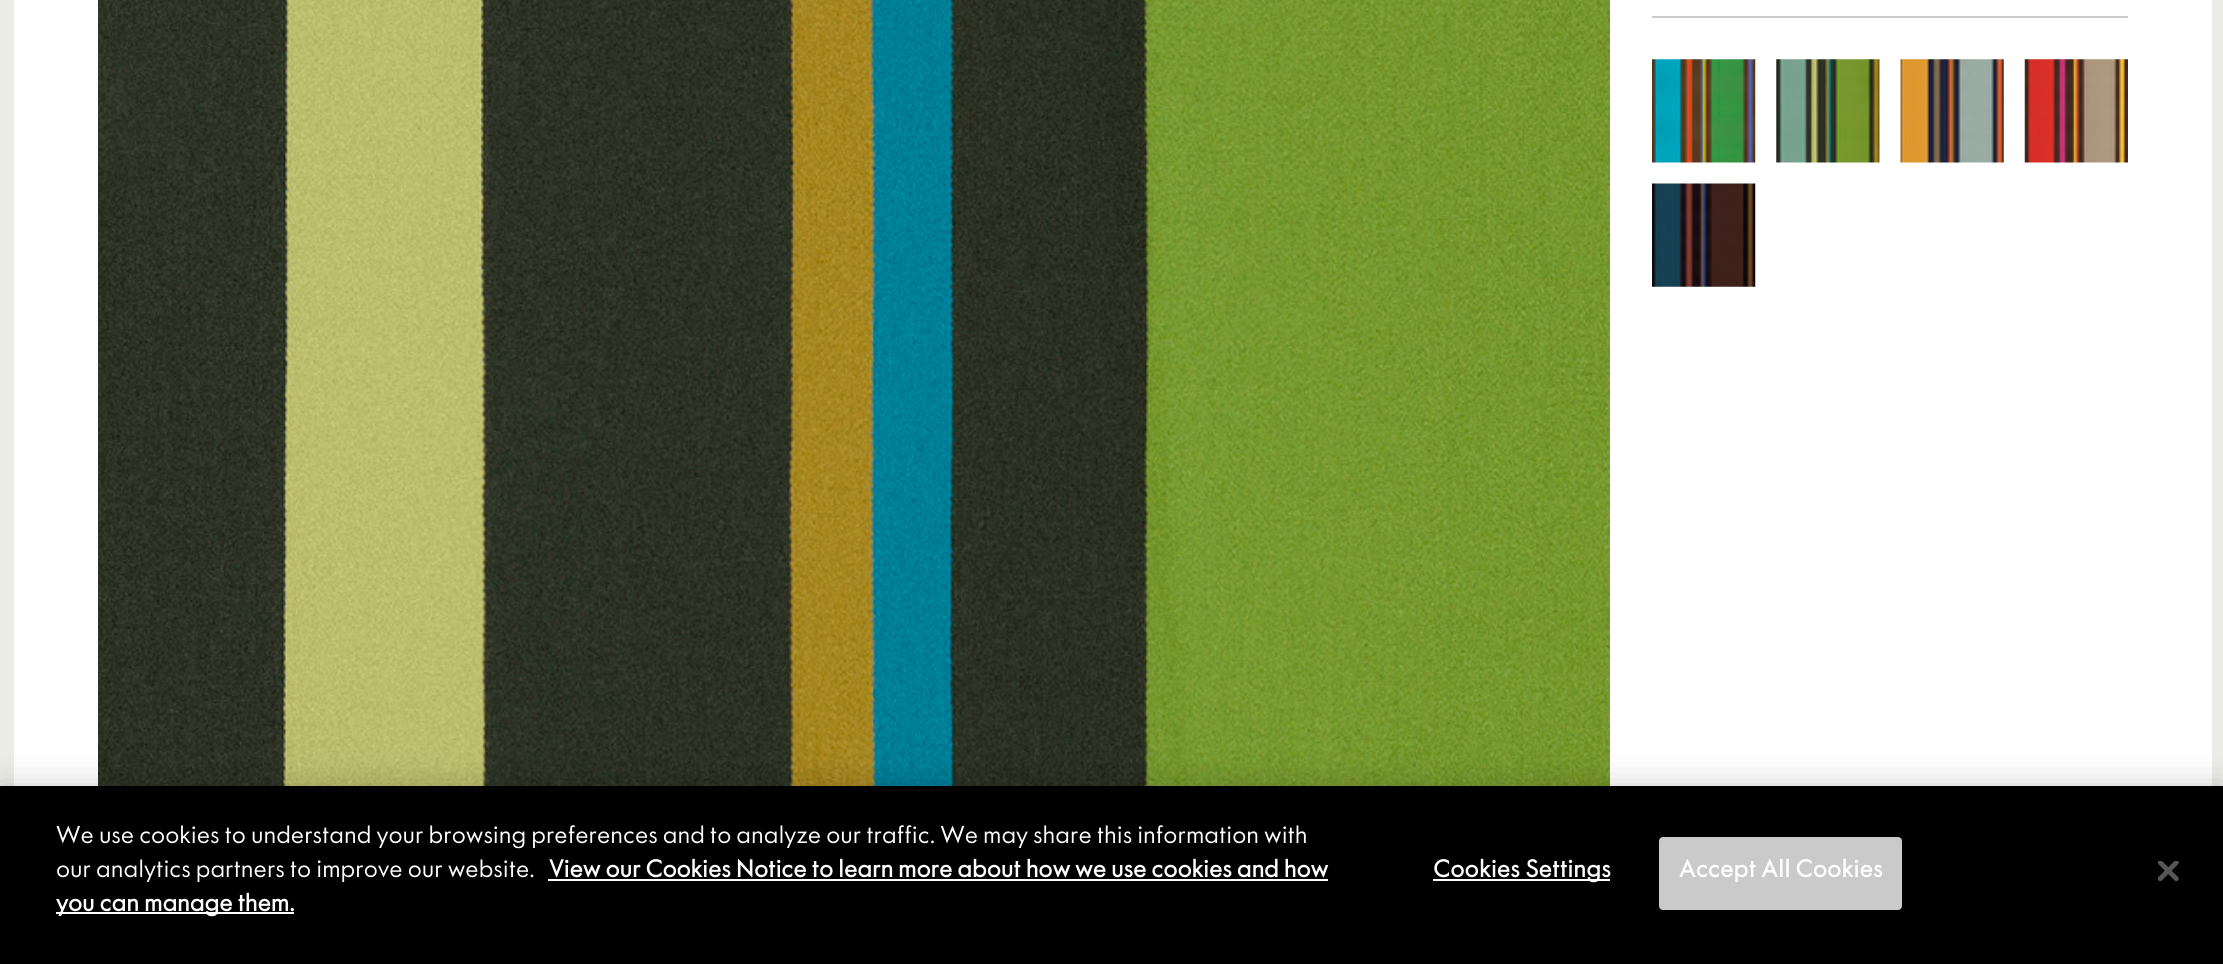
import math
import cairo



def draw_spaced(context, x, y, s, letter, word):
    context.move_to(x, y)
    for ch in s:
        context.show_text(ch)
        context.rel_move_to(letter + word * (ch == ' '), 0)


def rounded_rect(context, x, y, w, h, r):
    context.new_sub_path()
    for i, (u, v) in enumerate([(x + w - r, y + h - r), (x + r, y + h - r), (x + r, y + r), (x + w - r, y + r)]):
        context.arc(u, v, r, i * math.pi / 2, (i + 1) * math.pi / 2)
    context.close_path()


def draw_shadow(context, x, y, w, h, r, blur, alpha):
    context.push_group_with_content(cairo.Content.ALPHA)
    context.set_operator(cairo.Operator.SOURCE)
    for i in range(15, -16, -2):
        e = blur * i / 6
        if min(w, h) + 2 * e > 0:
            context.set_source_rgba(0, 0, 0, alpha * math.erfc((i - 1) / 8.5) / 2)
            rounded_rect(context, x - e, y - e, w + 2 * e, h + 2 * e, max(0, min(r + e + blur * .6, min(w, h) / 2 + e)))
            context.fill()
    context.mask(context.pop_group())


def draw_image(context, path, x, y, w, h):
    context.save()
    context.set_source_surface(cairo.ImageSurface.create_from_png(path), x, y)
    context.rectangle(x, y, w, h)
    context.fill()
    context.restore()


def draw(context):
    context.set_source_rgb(237 / 255, 237 / 255, 232 / 255)
    context.paint()
    context.set_source_rgb(1, 1, 1)
    context.rectangle(14, 0, 2198, 786)
    context.fill()
    draw_image(context, "images/1.png", 98, 0, 1512, 786)
    context.set_source_rgb(204 / 255, 204 / 255, 204 / 255)
    context.rectangle(1652, 16, 476, 2)
    context.fill()
    draw_image(context, "images/2.png", 1652, 59, 104, 104)
    draw_image(context, "images/3.png", 1776, 59, 104, 104)
    draw_image(context, "images/4.png", 1900, 59, 104, 104)
    draw_image(context, "images/5.png", 2024, 59, 104, 104)
    draw_image(context, "images/6.png", 1652, 183, 104, 104)
    context.set_source_rgb(0, 0, 0)
    draw_shadow(context, 0, 786, 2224, 178, 0, 16, 0.2)
    context.set_source_rgb(0, 0, 0)
    context.rectangle(0, 786, 2223, 178)
    context.fill()
    context.set_source_rgb(254 / 255, 1, 254 / 255)
    context.rectangle(548, 879, 780, 2)
    context.fill()
    context.rectangle(56, 912, 238, 2)
    context.fill()
    context.rectangle(1433, 879, 177, 2)
    context.fill()
    context.set_source_rgb(202 / 255, 202 / 255, 202 / 255)
    rounded_rect(context, 1660, 838, 241, 71, 3)
    context.fill_preserve()
    context.stroke()
    draw_image(context, "images/7.png", 2158, 861, 21, 21)
    context.select_font_face("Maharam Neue")
    context.set_font_size(22.75)
    context.set_source_rgb(254 / 255, 1, 254 / 255)
    context.move_to(56, 843)
    context.show_text("We use cookies to understand your browsing preferences and to analyze our traffic. We may share this information with")
    context.move_to(56, 877)
    context.show_text("our analytics partners to improve our website.")
    context.select_font_face("Maharam Neue", cairo.FontSlant.NORMAL, cairo.FontWeight.BOLD)
    context.move_to(549, 877)
    context.show_text("View our Cookies Notice to learn more about how we use cookies and how")
    context.move_to(56, 911)
    context.show_text("you can manage them.")
    draw_spaced(context, 1433, 877, "Cookies Settings", 0.25, 0)
    draw_spaced(context, 1679, 877, "Accept All Cookies", 0.25, 0)


surface = cairo.ImageSurface(cairo.Format.RGB24, 2223, 964)
context = cairo.Context(surface)
options = cairo.FontOptions()
options.set_hint_metrics(cairo.HintMetrics.OFF)
options.set_hint_style(cairo.HintStyle.NONE)
context.set_font_options(options)
context.set_miter_limit(4)
draw(context)
surface.write_to_png("out.png")
